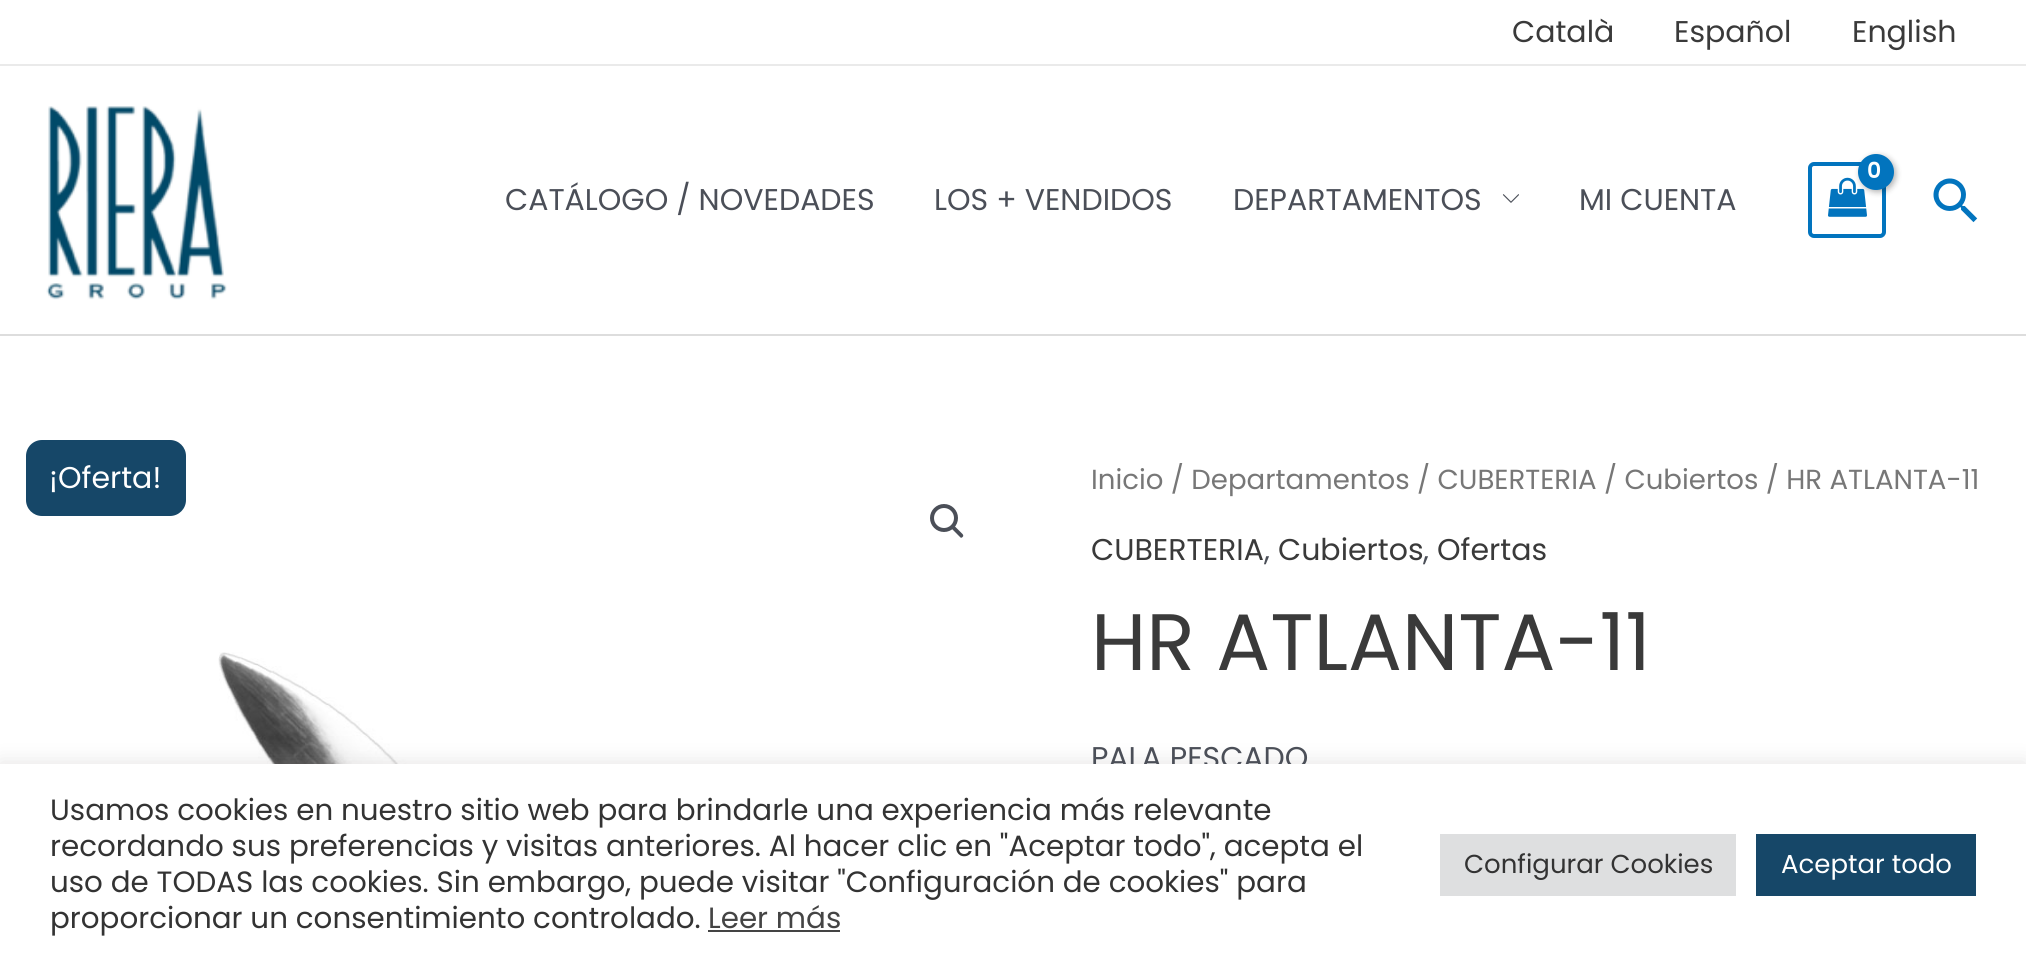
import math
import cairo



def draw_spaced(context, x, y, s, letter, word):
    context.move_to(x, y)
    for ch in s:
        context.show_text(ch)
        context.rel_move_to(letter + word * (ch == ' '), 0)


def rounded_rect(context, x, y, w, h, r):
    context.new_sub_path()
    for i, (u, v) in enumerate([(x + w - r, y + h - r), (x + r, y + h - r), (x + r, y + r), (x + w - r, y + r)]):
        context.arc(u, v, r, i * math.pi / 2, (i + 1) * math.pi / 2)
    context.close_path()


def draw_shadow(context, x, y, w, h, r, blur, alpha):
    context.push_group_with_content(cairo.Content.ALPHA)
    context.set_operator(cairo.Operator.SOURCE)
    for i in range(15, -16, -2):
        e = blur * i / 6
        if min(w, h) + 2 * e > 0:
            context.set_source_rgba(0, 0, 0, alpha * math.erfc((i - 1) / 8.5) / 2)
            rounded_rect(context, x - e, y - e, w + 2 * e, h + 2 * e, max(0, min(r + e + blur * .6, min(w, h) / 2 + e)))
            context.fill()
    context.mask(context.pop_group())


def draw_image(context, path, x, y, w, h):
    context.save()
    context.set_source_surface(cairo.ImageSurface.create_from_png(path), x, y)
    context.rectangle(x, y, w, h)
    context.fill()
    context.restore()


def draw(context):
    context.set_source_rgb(1, 1, 1)
    context.paint()
    context.set_source_rgb(234 / 255, 234 / 255, 234 / 255)
    context.rectangle(0, 64, 2026, 2)
    context.fill()
    context.set_source_rgb(221 / 255, 221 / 255, 221 / 255)
    context.rectangle(0, 334, 2026, 2)
    context.fill()
    draw_image(context, "images/1.png", 46, 106, 181, 194)
    rounded_rect(context, 1810, 164, 74, 72, 4)
    context.set_source_rgb(2 / 255, 116 / 255, 190 / 255)
    context.set_line_width(4)
    context.stroke()
    draw_image(context, "images/2.png", 1828, 177, 39, 40)
    context.set_source_rgb(0, 0, 0)
    draw_shadow(context, 1860, 156, 36, 36, 18, 3, 0.3)
    context.set_source_rgb(2 / 255, 116 / 255, 190 / 255)
    context.arc(1876, 172, 18, 0, 2 * math.pi)
    context.fill()
    draw_image(context, "images/3.png", 1502, 194, 17, 9)
    draw_image(context, "images/4.png", 1933, 178, 45, 45)
    context.set_source_rgb(22 / 255, 71 / 255, 104 / 255)
    rounded_rect(context, 26, 440, 160, 76, 16)
    context.fill()
    context.arc(944, 518, 12, 0, 2 * math.pi)
    context.set_source_rgb(75 / 255, 79 / 255, 88 / 255)
    context.stroke()
    context.new_path()
    context.move_to(951.5, 525.5)
    context.curve_to(952, 525, 953.5, 525, 954, 525.5)
    context.line_to(962.5, 534)
    context.curve_to(963.5, 535, 963.5, 536.5, 962.5, 537)
    context.curve_to(962, 538, 960.5, 538, 960, 537)
    context.line_to(951.5, 528.5)
    context.curve_to(950.5, 528, 950.5, 526.5, 951.5, 525.5)
    context.close_path()
    context.fill()
    draw_image(context, "images/5.png", 218, 652, 351, 112)
    context.set_source_rgb(172 / 255, 171 / 255, 171 / 255)
    draw_shadow(context, 0, 762, 2026, 200, 0, 10, 0.3)
    context.select_font_face("Poppins")
    context.set_font_size(30)
    context.set_source_rgb(58 / 255, 58 / 255, 58 / 255)
    context.move_to(1512, 42)
    context.show_text("Català")
    context.move_to(1674, 42)
    context.show_text("Español")
    context.move_to(1852, 42)
    context.show_text("English")
    context.select_font_face("Poppins SemiBold")
    context.set_font_size(22)
    context.set_source_rgb(1, 1, 1)
    draw_spaced(context, 1867, 178, "0", -1, 0)
    context.select_font_face("Poppins")
    context.set_font_size(30)
    context.set_source_rgb(75 / 255, 79 / 255, 88 / 255)
    context.move_to(505, 210)
    context.show_text("CATÁLOGO / NOVEDADES")
    context.move_to(934, 210)
    context.show_text("LOS + VENDIDOS")
    context.move_to(1233, 210)
    context.show_text("DEPARTAMENTOS")
    context.move_to(1579, 210)
    context.show_text("MI CUENTA")
    context.set_source_rgb(1, 1, 1)
    context.move_to(49, 488)
    context.show_text("¡Oferta!")
    context.set_font_size(27.6)
    context.set_source_rgb(119 / 255, 119 / 255, 119 / 255)
    context.move_to(1091, 489)
    context.show_text("Inicio / Departamentos / CUBERTERIA / Cubiertos / HR ATLANTA-11")
    context.set_font_size(30)
    context.set_source_rgb(58 / 255, 58 / 255, 58 / 255)
    context.move_to(1091, 560)
    context.show_text("CUBERTERIA")
    context.set_source_rgb(75 / 255, 79 / 255, 88 / 255)
    context.move_to(1264, 560)
    context.show_text(",")
    context.set_source_rgb(58 / 255, 58 / 255, 58 / 255)
    context.move_to(1278, 560)
    context.show_text("Cubiertos")
    context.set_source_rgb(75 / 255, 79 / 255, 88 / 255)
    context.move_to(1423, 560)
    context.show_text(",")
    context.set_source_rgb(58 / 255, 58 / 255, 58 / 255)
    context.move_to(1437, 560)
    context.show_text("Ofertas")
    context.set_font_size(80)
    context.move_to(1091, 670)
    context.show_text("HR ATLANTA-11")
    context.set_font_size(30)
    context.set_source_rgb(75 / 255, 79 / 255, 88 / 255)
    context.move_to(1091, 768)
    context.show_text("PALA PESCADO")
    context.set_source_rgb(1, 1, 1)
    context.rectangle(0, 764, 2026, 200)
    context.fill()
    context.set_font_size(29.35)
    context.set_source_rgb(51 / 255, 51 / 255, 51 / 255)
    context.move_to(50, 820)
    context.show_text("Usamos cookies en nuestro sitio web para brindarle una experiencia más relevante")
    context.move_to(50, 856)
    context.show_text("recordando sus preferencias y visitas anteriores. Al hacer clic en \"Aceptar todo\", acepta el")
    context.move_to(50, 892)
    context.show_text("uso de TODAS las cookies. Sin embargo, puede visitar \"Configuración de cookies\" para")
    context.move_to(50, 928)
    context.show_text("proporcionar un consentimiento controlado.")
    context.set_source_rgb(68 / 255, 68 / 255, 68 / 255)
    context.move_to(708, 928)
    context.show_text("Leer más")
    context.rectangle(708, 930, 132, 2)
    context.fill()
    context.set_source_rgb(222 / 255, 223 / 255, 224 / 255)
    context.rectangle(1440, 834, 296, 62)
    context.fill()
    context.set_font_size(26)
    context.set_source_rgb(51 / 255, 51 / 255, 51 / 255)
    context.move_to(1464, 873)
    context.show_text("Configurar Cookies")
    context.set_source_rgb(22 / 255, 71 / 255, 104 / 255)
    context.rectangle(1756, 834, 220, 62)
    context.fill()
    context.set_source_rgb(1, 1, 1)
    context.move_to(1781, 873)
    context.show_text("Aceptar todo")


surface = cairo.ImageSurface(cairo.Format.RGB24, 2026, 964)
context = cairo.Context(surface)
options = cairo.FontOptions()
options.set_hint_metrics(cairo.HintMetrics.OFF)
options.set_hint_style(cairo.HintStyle.NONE)
context.set_font_options(options)
context.set_miter_limit(4)
draw(context)
surface.write_to_png("out.png")
